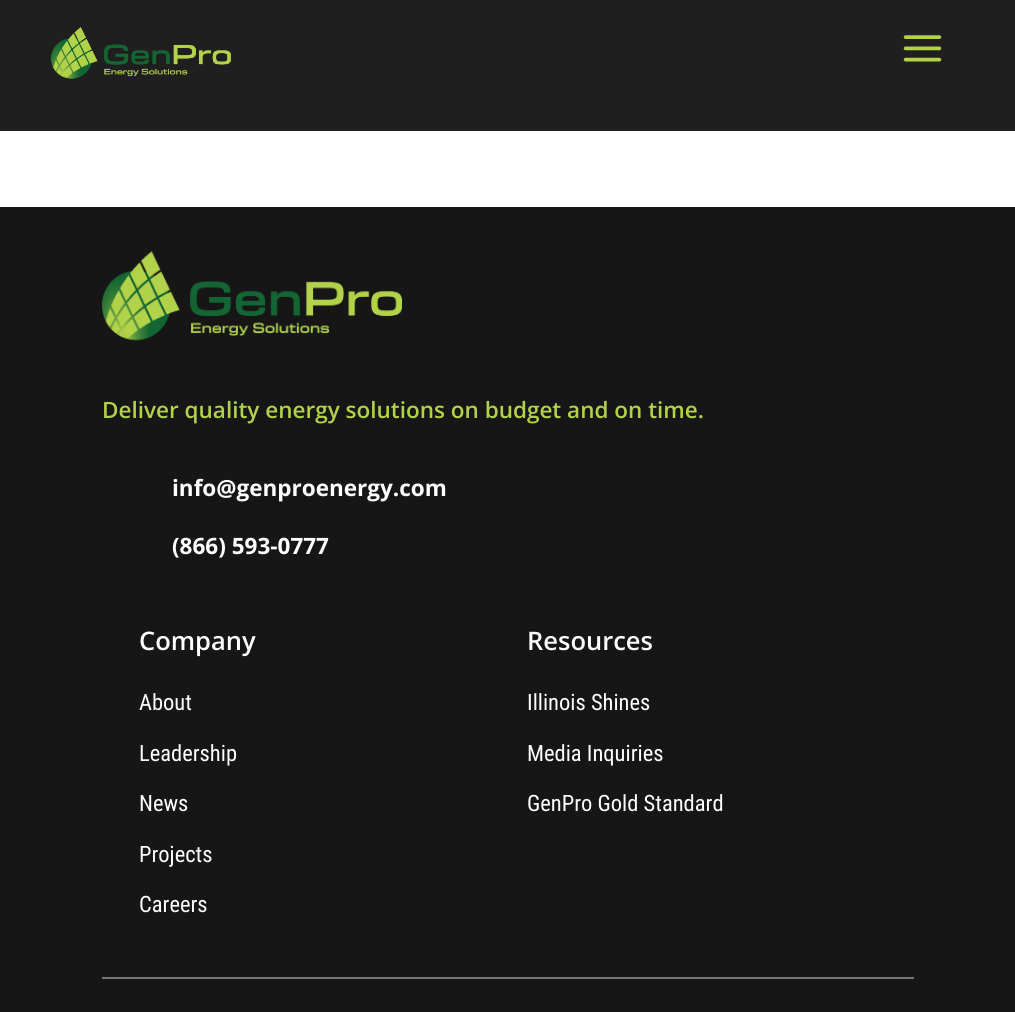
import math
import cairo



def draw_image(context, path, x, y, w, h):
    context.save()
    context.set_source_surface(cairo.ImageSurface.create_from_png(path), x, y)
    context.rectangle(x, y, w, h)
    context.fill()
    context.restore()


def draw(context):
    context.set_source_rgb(1, 1, 1)
    context.paint()
    context.set_source_rgb(31 / 255, 31 / 255, 31 / 255)
    context.rectangle(0, 0, 1015, 131)
    context.fill()
    draw_image(context, "images/1.png", 50, 27, 181, 52)
    draw_image(context, "images/2.png", 903, 35, 39, 27)
    context.set_source_rgb(22 / 255, 22 / 255, 22 / 255)
    context.rectangle(0, 207, 1015, 805)
    context.fill()
    draw_image(context, "images/3.png", 102, 251, 300, 90)
    context.set_source_rgb(117 / 255, 117 / 255, 117 / 255)
    context.rectangle(102, 977, 812, 2)
    context.fill()
    context.select_font_face("Open Sans SemiBold")
    context.set_font_size(22.5)
    context.set_source_rgb(178 / 255, 210 / 255, 73 / 255)
    context.move_to(102, 418)
    context.show_text("Deliver quality energy solutions on budget and on time.")
    context.select_font_face("Open Sans", cairo.FontSlant.NORMAL, cairo.FontWeight.BOLD)
    context.set_source_rgb(1, 1, 1)
    context.move_to(172, 496)
    context.show_text("info@genproenergy.com")
    context.move_to(172, 554)
    context.show_text("(866) 593-0777")
    context.select_font_face("Open Sans SemiBold")
    context.set_font_size(25.5)
    context.move_to(139, 650)
    context.show_text("Company")
    context.select_font_face("Roboto Condensed")
    context.set_font_size(22.5)
    context.move_to(139, 710)
    context.show_text("About")
    context.move_to(139, 761)
    context.show_text("Leadership")
    context.move_to(139, 811)
    context.show_text("News")
    context.move_to(139, 862)
    context.show_text("Projects")
    context.move_to(139, 912)
    context.show_text("Careers")
    context.select_font_face("Open Sans SemiBold")
    context.set_font_size(25.5)
    context.move_to(527, 650)
    context.show_text("Resources")
    context.select_font_face("Roboto Condensed")
    context.set_font_size(22.5)
    context.move_to(527, 710)
    context.show_text("Illinois Shines")
    context.move_to(527, 761)
    context.show_text("Media Inquiries")
    context.move_to(527, 811)
    context.show_text("GenPro Gold Standard")


surface = cairo.ImageSurface(cairo.Format.RGB24, 1015, 1012)
context = cairo.Context(surface)
options = cairo.FontOptions()
options.set_hint_metrics(cairo.HintMetrics.OFF)
options.set_hint_style(cairo.HintStyle.NONE)
context.set_font_options(options)
context.set_miter_limit(4)
draw(context)
surface.write_to_png("out.png")
